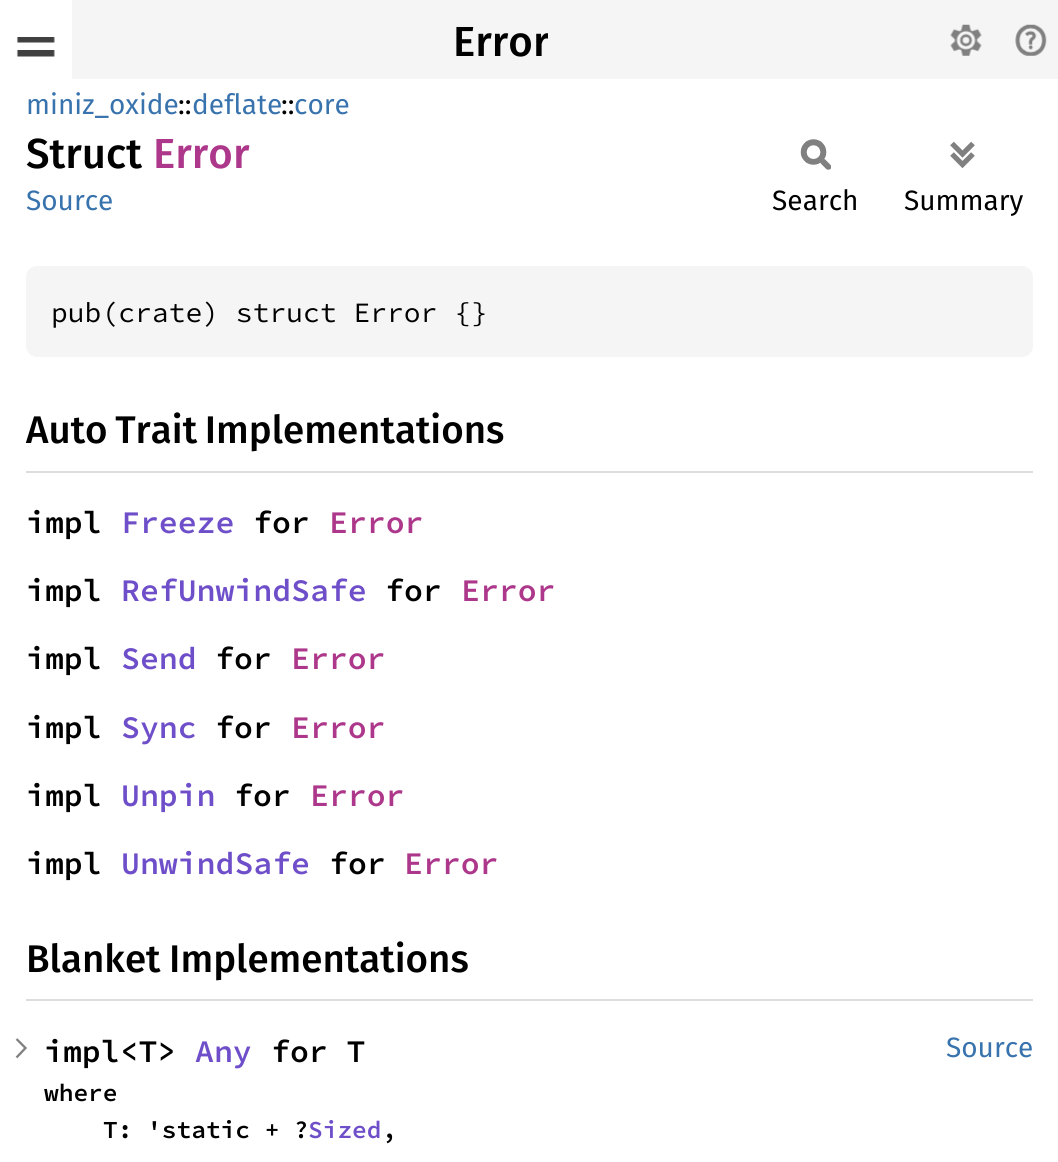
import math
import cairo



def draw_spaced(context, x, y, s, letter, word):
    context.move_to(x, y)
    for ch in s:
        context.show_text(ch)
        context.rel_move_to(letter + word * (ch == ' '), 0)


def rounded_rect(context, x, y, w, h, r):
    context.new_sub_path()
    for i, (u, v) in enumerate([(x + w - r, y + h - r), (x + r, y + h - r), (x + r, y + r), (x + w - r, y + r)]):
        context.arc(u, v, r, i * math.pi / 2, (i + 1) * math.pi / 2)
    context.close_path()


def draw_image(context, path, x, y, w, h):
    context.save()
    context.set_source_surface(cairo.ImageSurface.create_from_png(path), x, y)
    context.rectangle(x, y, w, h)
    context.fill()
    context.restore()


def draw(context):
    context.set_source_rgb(1, 1, 1)
    context.paint()
    context.set_source_rgb(245 / 255, 245 / 255, 245 / 255)
    context.rectangle(72, 0, 986, 79)
    context.fill()
    draw_image(context, "images/1.png", 16, 37, 39, 20)
    draw_image(context, "images/2.png", 950, 24, 32, 32)
    draw_image(context, "images/3.png", 1015, 24, 32, 32)
    draw_image(context, "images/4.png", 800, 139, 31, 31)
    draw_image(context, "images/5.png", 950, 141, 25, 28)
    rounded_rect(context, 26, 266, 1007, 91, 11)
    context.fill()
    context.set_source_rgb(221 / 255, 221 / 255, 221 / 255)
    context.rectangle(26, 471, 1007, 2)
    context.fill()
    context.rectangle(26, 999, 1007, 2)
    context.fill()
    context.new_path()
    context.move_to(16.5, 1039)
    context.line_to(25.5, 1048)
    context.line_to(16.5, 1057.5)
    context.set_source_rgb(128 / 255, 128 / 255, 128 / 255)
    context.set_line_width(2.3)
    context.stroke()
    context.save()
    context.rectangle(453, 11, 95, 57)
    context.clip()
    context.select_font_face("Fira Sans Medium")
    context.set_font_size(42)
    context.set_source_rgb(0, 0, 0)
    context.move_to(453, 56)
    context.show_text("Error")
    context.restore()
    context.select_font_face("Fira Sans")
    context.set_font_size(28)
    context.set_source_rgb(56 / 255, 115 / 255, 173 / 255)
    context.move_to(26, 114)
    context.show_text("miniz_oxide")
    context.set_source_rgb(0, 0, 0)
    context.move_to(178, 114)
    context.show_text("::")
    context.set_source_rgb(56 / 255, 115 / 255, 173 / 255)
    context.move_to(192, 114)
    context.show_text("deflate")
    context.set_source_rgb(0, 0, 0)
    context.move_to(281, 114)
    context.show_text("::")
    context.set_source_rgb(56 / 255, 115 / 255, 173 / 255)
    context.move_to(294, 114)
    context.show_text("core")
    context.select_font_face("Fira Sans Medium")
    context.set_font_size(42)
    context.set_source_rgb(0, 0, 0)
    context.move_to(26, 168)
    context.show_text("Struct")
    context.set_source_rgb(173 / 255, 55 / 255, 138 / 255)
    context.move_to(153, 168)
    context.show_text("Error")
    context.select_font_face("Fira Sans")
    context.set_font_size(28)
    context.set_source_rgb(56 / 255, 115 / 255, 173 / 255)
    context.move_to(26, 210)
    context.show_text("Source")
    context.set_source_rgb(0, 0, 0)
    context.move_to(772, 210)
    context.show_text("Search")
    context.move_to(904, 210)
    context.show_text("Summary")
    context.select_font_face("Source Code Pro")
    context.move_to(51, 322)
    context.show_text("pub(crate) struct Error {}")
    context.select_font_face("Fira Sans Medium")
    context.set_font_size(38.5)
    draw_spaced(context, 26, 443, "Auto Trait Implementations", 0, -2)
    context.select_font_face("Source Code Pro SemiBold")
    context.set_font_size(31.5)
    context.move_to(26, 533)
    context.show_text("impl")
    context.set_source_rgb(110 / 255, 79 / 255, 201 / 255)
    context.move_to(121, 533)
    context.show_text("Freeze")
    context.set_source_rgb(0, 0, 0)
    context.move_to(253, 533)
    context.show_text("for")
    context.set_source_rgb(173 / 255, 55 / 255, 138 / 255)
    context.move_to(329, 533)
    context.show_text("Error")
    context.set_source_rgb(0, 0, 0)
    context.move_to(26, 601)
    context.show_text("impl")
    context.set_source_rgb(110 / 255, 79 / 255, 201 / 255)
    context.move_to(121, 601)
    context.show_text("RefUnwindSafe")
    context.set_source_rgb(0, 0, 0)
    context.move_to(385, 601)
    context.show_text("for")
    context.set_source_rgb(173 / 255, 55 / 255, 138 / 255)
    context.move_to(461, 601)
    context.show_text("Error")
    context.set_source_rgb(0, 0, 0)
    context.move_to(26, 669)
    context.show_text("impl")
    context.set_source_rgb(110 / 255, 79 / 255, 201 / 255)
    context.move_to(121, 669)
    context.show_text("Send")
    context.set_source_rgb(0, 0, 0)
    context.move_to(215, 669)
    context.show_text("for")
    context.set_source_rgb(173 / 255, 55 / 255, 138 / 255)
    context.move_to(291, 669)
    context.show_text("Error")
    context.set_source_rgb(0, 0, 0)
    context.move_to(26, 738)
    context.show_text("impl")
    context.set_source_rgb(110 / 255, 79 / 255, 201 / 255)
    context.move_to(121, 738)
    context.show_text("Sync")
    context.set_source_rgb(0, 0, 0)
    context.move_to(215, 738)
    context.show_text("for")
    context.set_source_rgb(173 / 255, 55 / 255, 138 / 255)
    context.move_to(291, 738)
    context.show_text("Error")
    context.set_source_rgb(0, 0, 0)
    context.move_to(26, 806)
    context.show_text("impl")
    context.set_source_rgb(110 / 255, 79 / 255, 201 / 255)
    context.move_to(121, 806)
    context.show_text("Unpin")
    context.set_source_rgb(0, 0, 0)
    context.move_to(234, 806)
    context.show_text("for")
    context.set_source_rgb(173 / 255, 55 / 255, 138 / 255)
    context.move_to(310, 806)
    context.show_text("Error")
    context.set_source_rgb(0, 0, 0)
    context.move_to(26, 874)
    context.show_text("impl")
    context.set_source_rgb(110 / 255, 79 / 255, 201 / 255)
    context.move_to(121, 874)
    context.show_text("UnwindSafe")
    context.set_source_rgb(0, 0, 0)
    context.move_to(329, 874)
    context.show_text("for")
    context.set_source_rgb(173 / 255, 55 / 255, 138 / 255)
    context.move_to(404, 874)
    context.show_text("Error")
    context.select_font_face("Fira Sans Medium")
    context.set_font_size(38.5)
    context.set_source_rgb(0, 0, 0)
    draw_spaced(context, 26, 972, "Blanket Implementations", 0, -1)
    context.select_font_face("Source Code Pro SemiBold")
    context.set_font_size(31.5)
    context.move_to(44, 1062)
    context.show_text("impl<T>")
    context.set_source_rgb(110 / 255, 79 / 255, 201 / 255)
    context.move_to(195, 1062)
    context.show_text("Any")
    context.set_source_rgb(0, 0, 0)
    context.move_to(271, 1062)
    context.show_text("for T")
    context.set_font_size(24.5)
    context.move_to(44, 1101)
    context.show_text("where")
    context.move_to(103, 1138)
    context.show_text("T: 'static + ?")
    context.set_source_rgb(110 / 255, 79 / 255, 201 / 255)
    context.move_to(308, 1138)
    context.show_text("Sized")
    context.set_source_rgb(0, 0, 0)
    context.move_to(382, 1138)
    context.show_text(",")
    context.select_font_face("Fira Sans")
    context.set_font_size(28)
    context.set_source_rgb(56 / 255, 115 / 255, 173 / 255)
    context.move_to(946, 1057)
    context.show_text("Source")


surface = cairo.ImageSurface(cairo.Format.RGB24, 1058, 1162)
context = cairo.Context(surface)
options = cairo.FontOptions()
options.set_hint_metrics(cairo.HintMetrics.OFF)
options.set_hint_style(cairo.HintStyle.NONE)
context.set_font_options(options)
context.set_miter_limit(4)
draw(context)
surface.write_to_png("out.png")
